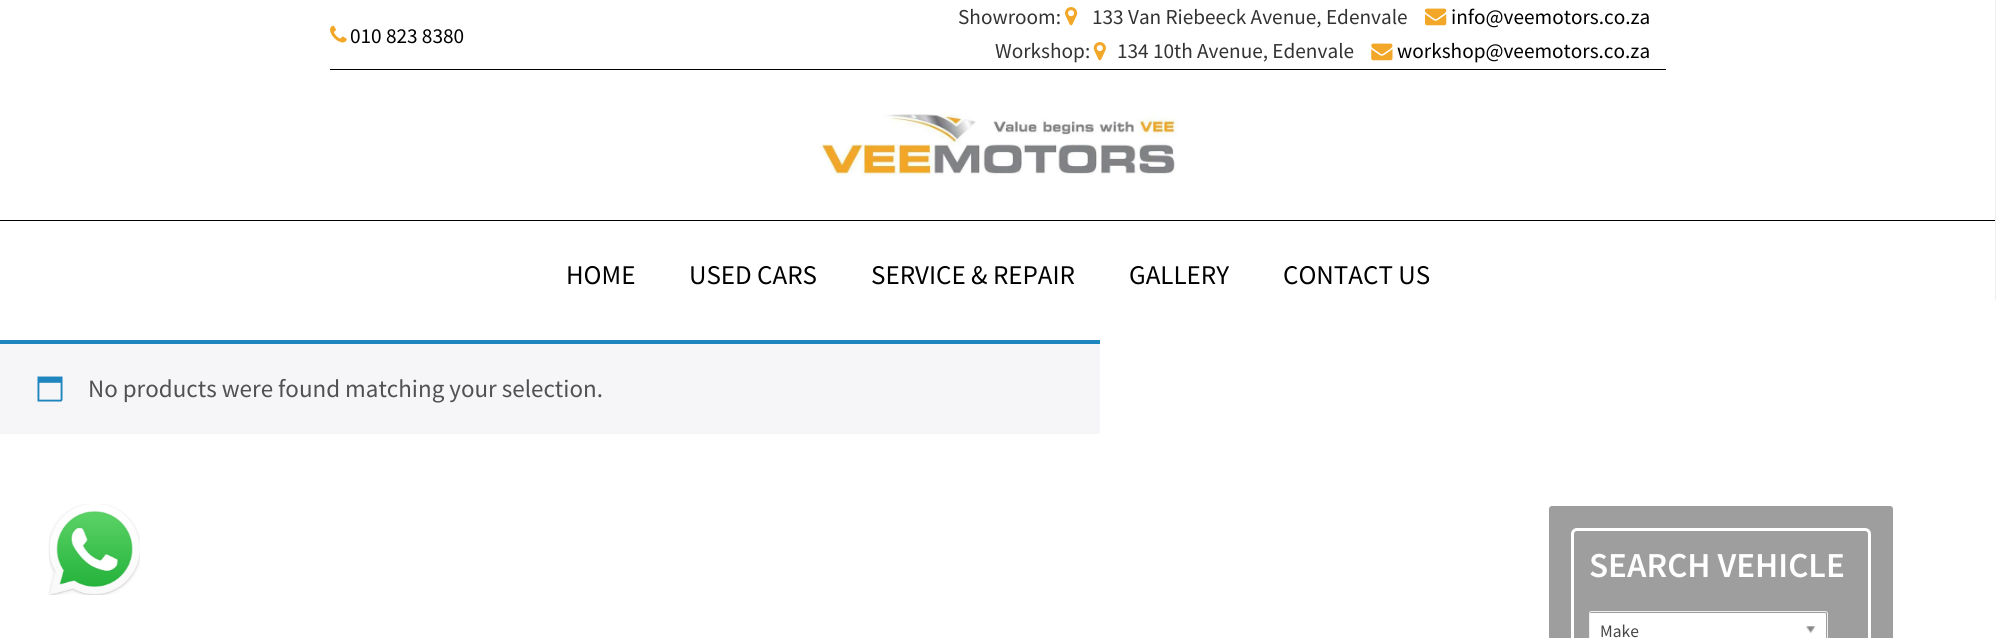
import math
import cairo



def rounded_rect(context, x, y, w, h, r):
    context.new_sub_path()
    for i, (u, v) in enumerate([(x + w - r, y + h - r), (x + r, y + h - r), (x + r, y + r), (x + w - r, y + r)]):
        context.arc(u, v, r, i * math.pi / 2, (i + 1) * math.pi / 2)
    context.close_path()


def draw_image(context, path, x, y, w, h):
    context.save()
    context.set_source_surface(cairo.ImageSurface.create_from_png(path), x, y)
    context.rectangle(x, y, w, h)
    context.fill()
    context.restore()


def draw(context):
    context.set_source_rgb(1, 1, 1)
    context.paint()
    draw_image(context, "images/1.png", 1065, 7, 13, 19)
    draw_image(context, "images/2.png", 1425, 8, 22, 18)
    draw_image(context, "images/3.png", 330, 25, 17, 18)
    draw_image(context, "images/4.png", 1093, 42, 13, 19)
    draw_image(context, "images/5.png", 1371, 43, 22, 18)
    context.set_source_rgb(0, 0, 0)
    context.rectangle(330, 69, 1336, 1)
    context.fill()
    context.rectangle(0, 220, 1996, 1)
    context.fill()
    draw_image(context, "images/6.png", 819, 114, 359, 63)
    context.set_source_rgb(246 / 255, 245 / 255, 248 / 255)
    context.rectangle(0, 344, 1100, 90)
    context.fill()
    context.set_source_rgb(30 / 255, 133 / 255, 190 / 255)
    context.rectangle(0, 340, 1100, 4)
    context.fill()
    draw_image(context, "images/7.png", 37, 376, 26, 26)
    context.set_source_rgb(238 / 255, 238 / 255, 238 / 255)
    context.rectangle(1995, 0, 1, 300)
    context.fill()
    context.set_source_rgb(158 / 255, 158 / 255, 158 / 255)
    rounded_rect(context, 1547.5, 504.5, 347, 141, 4.5)
    context.fill_preserve()
    context.set_source_rgb(1, 1, 1)
    context.set_line_width(3)
    context.stroke()
    rounded_rect(context, 1572.5, 529.5, 297, 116, 4.5)
    context.stroke()
    rounded_rect(context, 1590, 613, 236, 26, 1)
    context.fill()
    rounded_rect(context, 1589.5, 611.5, 238, 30, 2)
    context.set_source_rgb(238 / 255, 238 / 255, 238 / 255)
    context.set_line_width(1)
    context.stroke()
    draw_image(context, "images/8.png", 1806, 626, 10, 8)
    draw_image(context, "images/9.png", 48, 504, 92, 91)
    context.select_font_face("Source Sans Pro")
    context.set_font_size(21.25)
    context.set_source_rgb(51 / 255, 51 / 255, 51 / 255)
    context.move_to(958, 24)
    context.show_text("Showroom:")
    context.move_to(1092, 24)
    context.show_text("133 Van Riebeeck Avenue, Edenvale")
    context.set_source_rgb(0, 0, 0)
    context.move_to(1451, 24)
    context.show_text("info@veemotors.co.za")
    context.move_to(350, 43)
    context.show_text("010 823 8380")
    context.set_source_rgb(51 / 255, 51 / 255, 51 / 255)
    context.move_to(995, 58)
    context.show_text("Workshop:")
    context.move_to(1117, 58)
    context.show_text("134 10th Avenue, Edenvale")
    context.set_source_rgb(0, 0, 0)
    context.move_to(1397, 58)
    context.show_text("workshop@veemotors.co.za")
    context.set_font_size(27)
    context.move_to(566, 284)
    context.show_text("HOME")
    context.move_to(689, 284)
    context.show_text("USED CARS")
    context.move_to(871, 284)
    context.show_text("SERVICE & REPAIR")
    context.move_to(1129, 284)
    context.show_text("GALLERY")
    context.move_to(1283, 284)
    context.show_text("CONTACT US")
    context.set_font_size(25)
    context.set_source_rgb(81 / 255, 81 / 255, 81 / 255)
    context.move_to(88, 397)
    context.show_text("No products were found matching your selection.")
    context.select_font_face("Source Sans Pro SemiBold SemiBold")
    context.set_font_size(35)
    context.set_source_rgb(1, 1, 1)
    context.move_to(1589, 577)
    context.show_text("SEARCH VEHICLE")
    context.select_font_face("Source Sans Pro")
    context.set_font_size(17.5)
    context.set_source_rgb(68 / 255, 68 / 255, 68 / 255)
    context.move_to(1600, 637)
    context.show_text("Make")


surface = cairo.ImageSurface(cairo.Format.RGB24, 1996, 638)
context = cairo.Context(surface)
options = cairo.FontOptions()
options.set_hint_metrics(cairo.HintMetrics.OFF)
options.set_hint_style(cairo.HintStyle.NONE)
context.set_font_options(options)
context.set_miter_limit(4)
draw(context)
surface.write_to_png("out.png")
